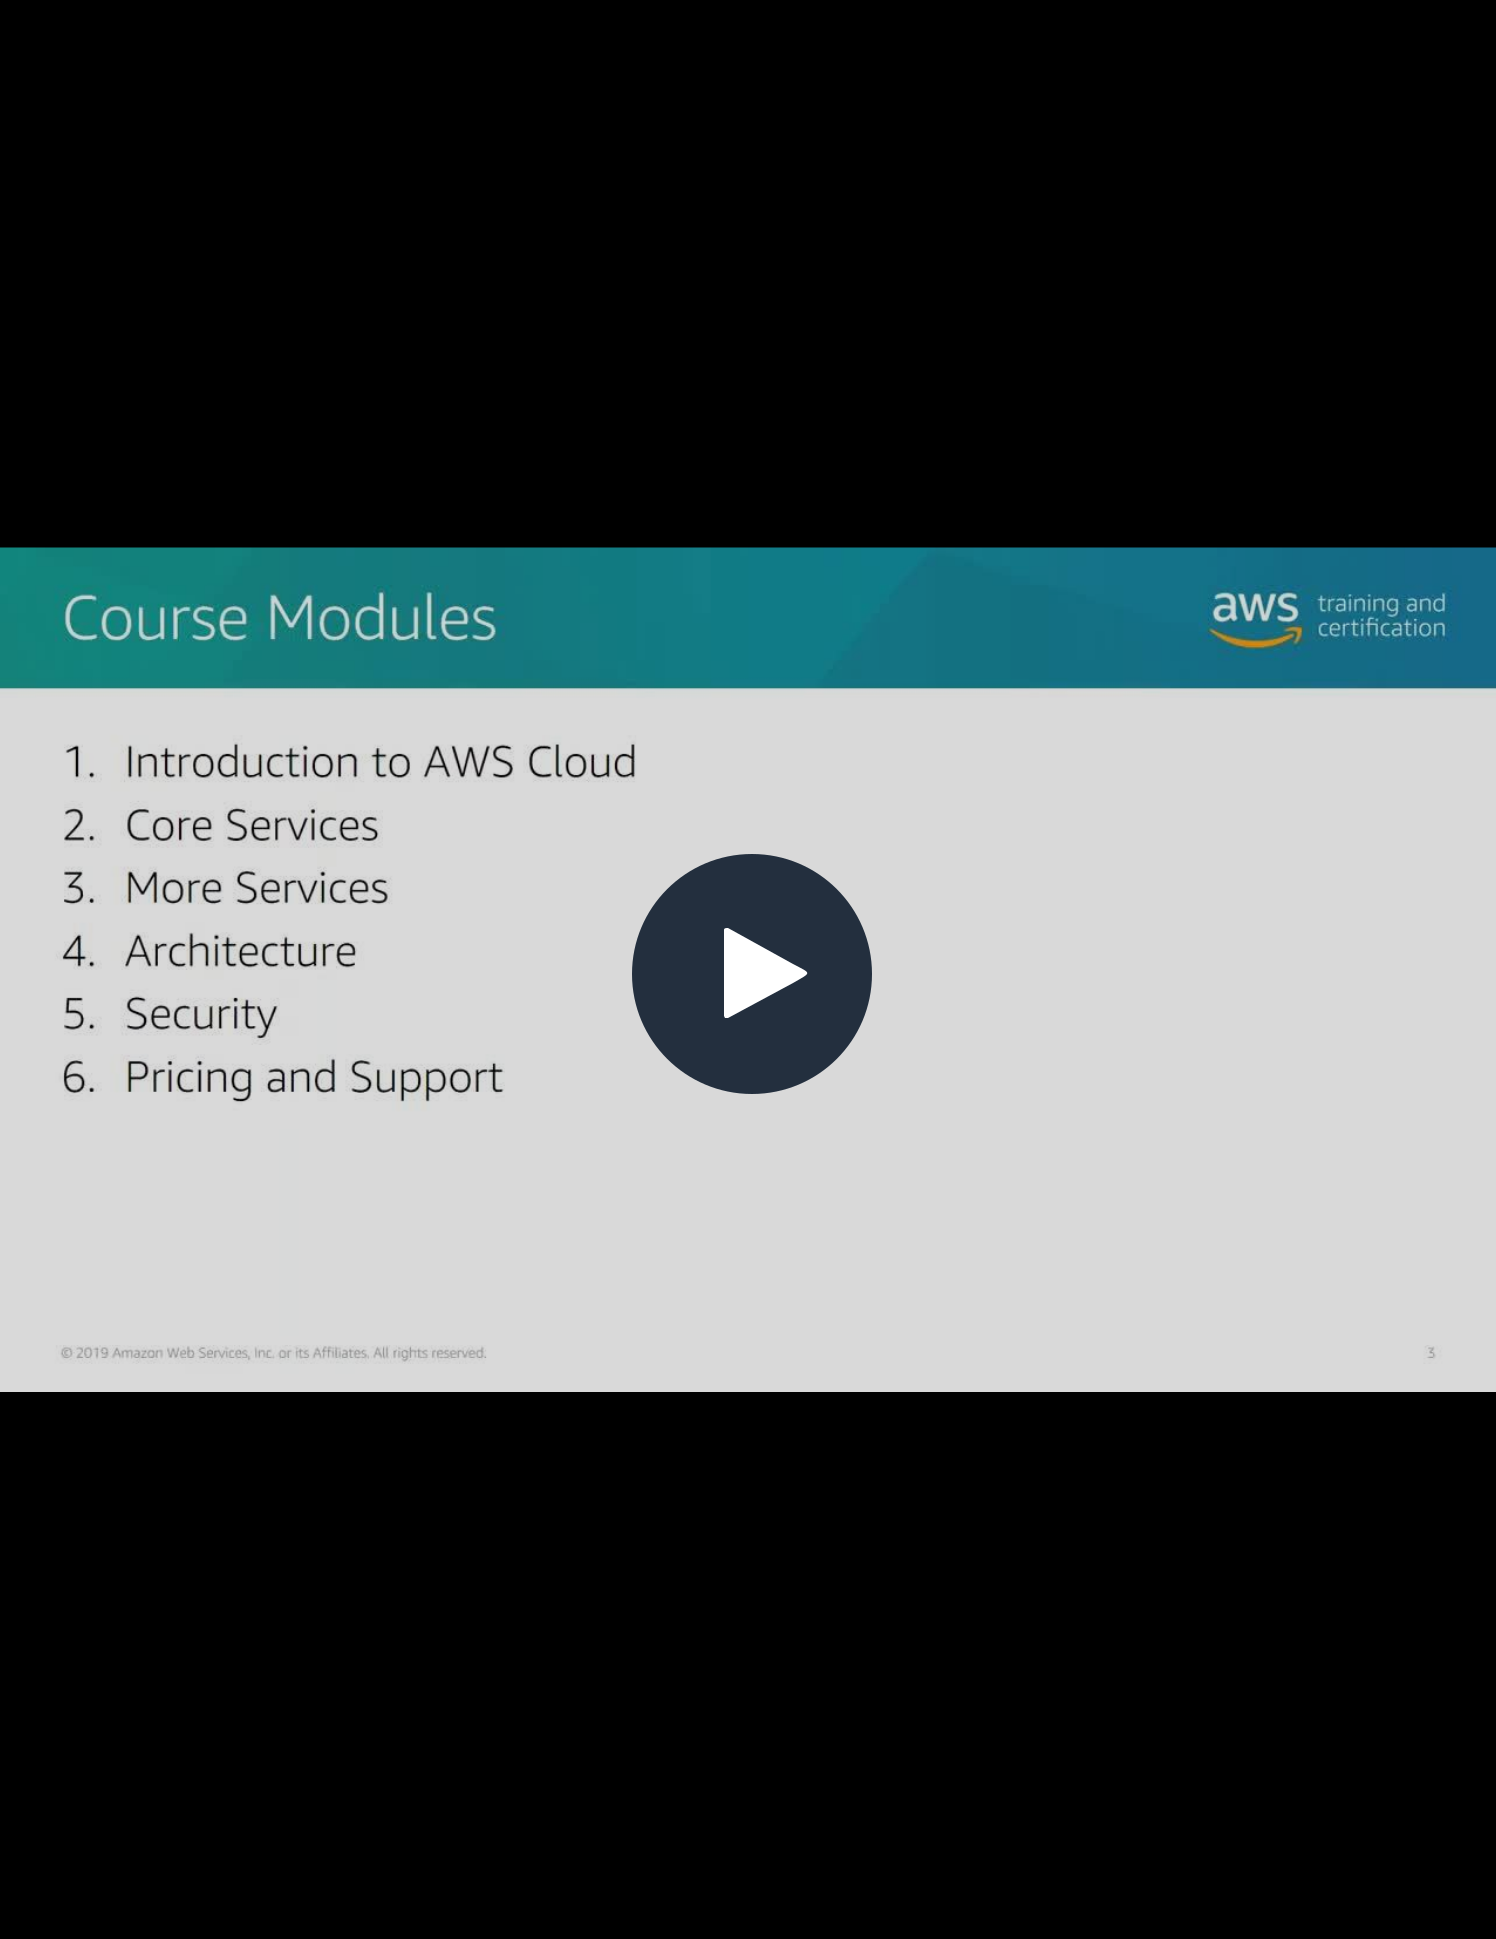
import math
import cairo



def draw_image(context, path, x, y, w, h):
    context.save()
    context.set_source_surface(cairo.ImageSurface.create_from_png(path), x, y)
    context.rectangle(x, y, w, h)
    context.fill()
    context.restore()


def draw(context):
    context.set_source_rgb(0, 0, 0)
    context.paint()
    draw_image(context, "images/1.png", 0, 547, 1496, 845)
    context.set_source_rgb(35 / 255, 47 / 255, 62 / 255)
    context.arc(752, 974, 120, 0, 2 * math.pi)
    context.fill()
    context.set_source_rgb(1, 1, 1)
    context.new_path()
    context.move_to(728, 928)
    context.line_to(793, 964)
    context.curve_to(812, 974, 812, 972, 793, 983)
    context.line_to(728, 1018)
    context.line_to(725, 1018)
    context.line_to(724, 1016)
    context.line_to(724, 930)
    context.curve_to(724, 928, 726, 928, 728, 928)
    context.close_path()
    context.fill()


surface = cairo.ImageSurface(cairo.Format.RGB24, 1496, 1939)
context = cairo.Context(surface)
options = cairo.FontOptions()
options.set_hint_metrics(cairo.HintMetrics.OFF)
options.set_hint_style(cairo.HintStyle.NONE)
context.set_font_options(options)
context.set_miter_limit(4)
draw(context)
surface.write_to_png("out.png")
